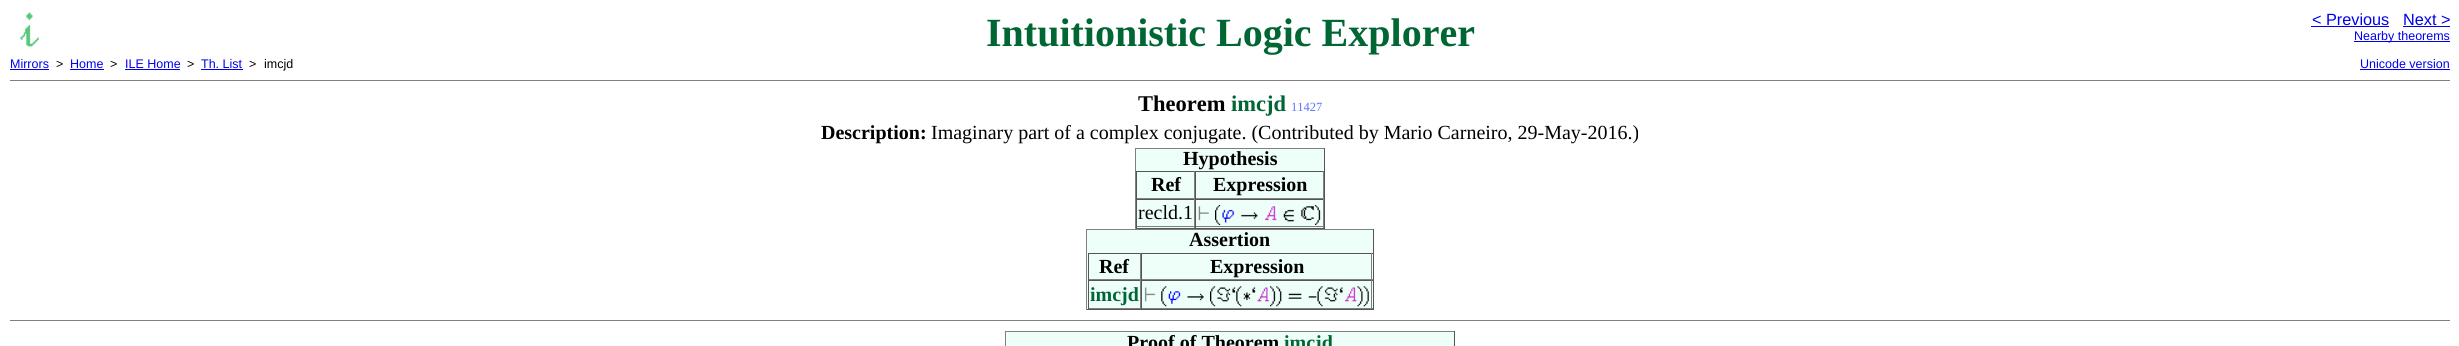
import math
import cairo



def draw_image(context, path, x, y, w, h):
    context.save()
    context.set_source_surface(cairo.ImageSurface.create_from_png(path), x, y)
    context.rectangle(x, y, w, h)
    context.fill()
    context.restore()


def draw(context):
    context.set_source_rgb(1, 1, 1)
    context.paint()
    draw_image(context, "images/1.png", 19, 12, 20, 35)
    context.set_source_rgb(0, 0, 238 / 255)
    context.rectangle(2311, 26, 78, 1)
    context.fill()
    context.rectangle(2403, 26, 47, 1)
    context.fill()
    context.rectangle(2354, 41, 96, 1)
    context.fill()
    context.rectangle(10, 69, 39, 1)
    context.fill()
    context.rectangle(70, 69, 34, 1)
    context.fill()
    context.rectangle(125, 69, 55, 1)
    context.fill()
    context.rectangle(201, 69, 42, 1)
    context.fill()
    context.rectangle(2360, 69, 90, 1)
    context.fill()
    context.set_source_rgb(128 / 255, 128 / 255, 128 / 255)
    context.rectangle(10, 80, 2440, 1)
    context.fill()
    context.set_source_rgb(238 / 255, 1, 250 / 255)
    context.rectangle(1136, 149, 188, 79)
    context.fill()
    context.set_source_rgb(128 / 255, 128 / 255, 128 / 255)
    context.rectangle(1135, 148, 190, 1)
    context.fill()
    context.set_source_rgb(85 / 255, 85 / 255, 85 / 255)
    context.rectangle(1324, 148, 1, 81)
    context.fill()
    context.rectangle(1135, 228, 190, 1)
    context.fill()
    context.set_source_rgb(128 / 255, 128 / 255, 128 / 255)
    context.rectangle(1135, 148, 1, 81)
    context.fill()
    context.set_source_rgb(85 / 255, 85 / 255, 85 / 255)
    context.rectangle(1136, 171, 188, 1)
    context.fill()
    context.set_source_rgb(128 / 255, 128 / 255, 128 / 255)
    context.rectangle(1194, 171, 1, 28)
    context.fill()
    context.rectangle(1136, 198, 59, 1)
    context.fill()
    context.set_source_rgb(85 / 255, 85 / 255, 85 / 255)
    context.rectangle(1136, 171, 1, 28)
    context.fill()
    context.set_source_rgb(128 / 255, 128 / 255, 128 / 255)
    context.rectangle(1323, 171, 1, 28)
    context.fill()
    context.rectangle(1195, 198, 129, 1)
    context.fill()
    context.set_source_rgb(85 / 255, 85 / 255, 85 / 255)
    context.rectangle(1195, 171, 1, 28)
    context.fill()
    context.rectangle(1136, 199, 188, 1)
    context.fill()
    context.set_source_rgb(128 / 255, 128 / 255, 128 / 255)
    context.rectangle(1194, 199, 1, 29)
    context.fill()
    context.rectangle(1136, 226, 59, 1)
    context.fill()
    context.set_source_rgb(85 / 255, 85 / 255, 85 / 255)
    context.rectangle(1136, 199, 1, 29)
    context.fill()
    context.set_source_rgb(128 / 255, 128 / 255, 128 / 255)
    context.rectangle(1323, 199, 1, 29)
    context.fill()
    context.rectangle(1195, 226, 129, 1)
    context.fill()
    context.set_source_rgb(85 / 255, 85 / 255, 85 / 255)
    context.rectangle(1195, 199, 1, 29)
    context.fill()
    draw_image(context, "images/2.png", 1198, 206, 11, 15)
    draw_image(context, "images/3.png", 1215, 204, 6, 21)
    draw_image(context, "images/4.png", 1222, 209, 12, 14)
    draw_image(context, "images/5.png", 1241, 212, 17, 7)
    draw_image(context, "images/6.png", 1264, 206, 13, 15)
    draw_image(context, "images/7.png", 1283, 209, 11, 13)
    draw_image(context, "images/8.png", 1301, 206, 13, 15)
    draw_image(context, "images/9.png", 1315, 204, 6, 21)
    context.set_source_rgb(238 / 255, 1, 250 / 255)
    context.rectangle(1087, 230, 286, 79)
    context.fill()
    context.set_source_rgb(128 / 255, 128 / 255, 128 / 255)
    context.rectangle(1086, 229, 288, 1)
    context.fill()
    context.set_source_rgb(85 / 255, 85 / 255, 85 / 255)
    context.rectangle(1373, 229, 1, 81)
    context.fill()
    context.rectangle(1086, 309, 288, 1)
    context.fill()
    context.set_source_rgb(128 / 255, 128 / 255, 128 / 255)
    context.rectangle(1086, 229, 1, 81)
    context.fill()
    context.set_source_rgb(85 / 255, 85 / 255, 85 / 255)
    context.rectangle(1088, 253, 285, 1)
    context.fill()
    context.set_source_rgb(128 / 255, 128 / 255, 128 / 255)
    context.rectangle(1140, 253, 1, 27)
    context.fill()
    context.rectangle(1088, 279, 53, 1)
    context.fill()
    context.set_source_rgb(85 / 255, 85 / 255, 85 / 255)
    context.rectangle(1088, 253, 1, 27)
    context.fill()
    context.set_source_rgb(128 / 255, 128 / 255, 128 / 255)
    context.rectangle(1371, 253, 1, 27)
    context.fill()
    context.rectangle(1141, 279, 232, 1)
    context.fill()
    context.set_source_rgb(85 / 255, 85 / 255, 85 / 255)
    context.rectangle(1141, 253, 1, 27)
    context.fill()
    context.rectangle(1088, 280, 285, 1)
    context.fill()
    context.set_source_rgb(128 / 255, 128 / 255, 128 / 255)
    context.rectangle(1140, 280, 1, 29)
    context.fill()
    context.rectangle(1088, 308, 53, 1)
    context.fill()
    context.set_source_rgb(85 / 255, 85 / 255, 85 / 255)
    context.rectangle(1088, 280, 1, 29)
    context.fill()
    context.set_source_rgb(128 / 255, 128 / 255, 128 / 255)
    context.rectangle(1371, 280, 1, 29)
    context.fill()
    context.rectangle(1141, 308, 232, 1)
    context.fill()
    context.set_source_rgb(85 / 255, 85 / 255, 85 / 255)
    context.rectangle(1141, 280, 1, 29)
    context.fill()
    draw_image(context, "images/10.png", 1144, 287, 12, 15)
    draw_image(context, "images/11.png", 1161, 286, 6, 21)
    draw_image(context, "images/12.png", 1168, 291, 13, 13)
    draw_image(context, "images/13.png", 1187, 293, 17, 8)
    draw_image(context, "images/14.png", 1210, 286, 6, 21)
    draw_image(context, "images/15.png", 1217, 287, 14, 15)
    draw_image(context, "images/16.png", 1232, 287, 4, 6)
    draw_image(context, "images/11.png", 1236, 286, 6, 21)
    draw_image(context, "images/17.png", 1243, 292, 8, 9)
    draw_image(context, "images/16.png", 1252, 287, 4, 6)
    draw_image(context, "images/18.png", 1257, 287, 12, 15)
    draw_image(context, "images/19.png", 1270, 286, 6, 21)
    draw_image(context, "images/20.png", 1276, 286, 6, 21)
    draw_image(context, "images/21.png", 1288, 293, 14, 6)
    draw_image(context, "images/22.png", 1308, 296, 9, 2)
    draw_image(context, "images/23.png", 1317, 286, 6, 21)
    draw_image(context, "images/24.png", 1324, 287, 14, 15)
    draw_image(context, "images/25.png", 1339, 287, 4, 6)
    draw_image(context, "images/26.png", 1344, 287, 13, 15)
    draw_image(context, "images/27.png", 1357, 286, 6, 21)
    draw_image(context, "images/28.png", 1363, 286, 6, 21)
    context.set_source_rgb(128 / 255, 128 / 255, 128 / 255)
    context.rectangle(10, 320, 2440, 1)
    context.fill()
    context.set_source_rgb(238 / 255, 1, 250 / 255)
    context.rectangle(1006, 332, 448, 14)
    context.fill()
    context.set_source_rgb(128 / 255, 128 / 255, 128 / 255)
    context.rectangle(1005, 331, 450, 1)
    context.fill()
    context.set_source_rgb(85 / 255, 85 / 255, 85 / 255)
    context.rectangle(1454, 331, 1, 15)
    context.fill()
    context.set_source_rgb(128 / 255, 128 / 255, 128 / 255)
    context.rectangle(1005, 331, 1, 15)
    context.fill()
    context.select_font_face("Liberation Serif", cairo.FontSlant.NORMAL, cairo.FontWeight.BOLD)
    context.set_font_size(40)
    context.set_source_rgb(0, 102 / 255, 51 / 255)
    context.move_to(986, 46)
    context.show_text("Intuitionistic Logic Explorer")
    context.select_font_face("Liberation Sans")
    context.set_font_size(16.25)
    context.set_source_rgb(0, 0, 238 / 255)
    context.move_to(2312, 25)
    context.show_text("< Previous")
    context.move_to(2403, 25)
    context.show_text("Next >")
    context.set_font_size(12.5)
    context.move_to(2354, 40)
    context.show_text("Nearby theorems")
    context.move_to(10, 68)
    context.show_text("Mirrors")
    context.set_source_rgb(0, 0, 0)
    context.move_to(56, 68)
    context.show_text(">")
    context.set_source_rgb(0, 0, 238 / 255)
    context.move_to(70, 68)
    context.show_text("Home")
    context.set_source_rgb(0, 0, 0)
    context.move_to(110, 68)
    context.show_text(">")
    context.set_source_rgb(0, 0, 238 / 255)
    context.move_to(125, 68)
    context.show_text("ILE Home")
    context.set_source_rgb(0, 0, 0)
    context.move_to(187, 68)
    context.show_text(">")
    context.set_source_rgb(0, 0, 238 / 255)
    context.move_to(201, 68)
    context.show_text("Th. List")
    context.set_source_rgb(0, 0, 0)
    context.move_to(249, 68)
    context.show_text(">")
    context.move_to(264, 68)
    context.show_text("imcjd")
    context.set_source_rgb(0, 0, 238 / 255)
    context.move_to(2360, 68)
    context.show_text("Unicode version")
    context.select_font_face("Liberation Serif", cairo.FontSlant.NORMAL, cairo.FontWeight.BOLD)
    context.set_font_size(22.5)
    context.set_source_rgb(0, 0, 0)
    context.move_to(1138, 111)
    context.show_text("Theorem")
    context.set_source_rgb(0, 102 / 255, 51 / 255)
    context.move_to(1231, 111)
    context.show_text("imcjd")
    context.select_font_face("Liberation Serif")
    context.set_font_size(12.5)
    context.set_source_rgb(92 / 255, 113 / 255, 1)
    context.move_to(1291, 111)
    context.show_text("11427")
    context.select_font_face("Liberation Serif", cairo.FontSlant.NORMAL, cairo.FontWeight.BOLD)
    context.set_font_size(20)
    context.set_source_rgb(0, 0, 0)
    context.move_to(821, 139)
    context.show_text("Description:")
    context.select_font_face("Liberation Serif")
    context.move_to(931, 139)
    context.show_text("Imaginary part of a complex conjugate. (Contributed by Mario Carneiro, 29-May-2016.)")
    context.select_font_face("Liberation Serif", cairo.FontSlant.NORMAL, cairo.FontWeight.BOLD)
    context.move_to(1183, 165)
    context.show_text("Hypothesis")
    context.move_to(1151, 191)
    context.show_text("Ref")
    context.move_to(1213, 191)
    context.show_text("Expression")
    context.select_font_face("Liberation Serif")
    context.move_to(1138, 219)
    context.show_text("recld.1")
    context.select_font_face("Liberation Serif", cairo.FontSlant.NORMAL, cairo.FontWeight.BOLD)
    context.move_to(1189, 246)
    context.show_text("Assertion")
    context.move_to(1099, 273)
    context.show_text("Ref")
    context.move_to(1210, 273)
    context.show_text("Expression")
    context.set_source_rgb(0, 102 / 255, 51 / 255)
    context.move_to(1090, 301)
    context.show_text("imcjd")
    context.set_source_rgb(0, 0, 0)
    context.move_to(1127, 349)
    context.show_text("Proof of Theorem")
    context.set_source_rgb(0, 102 / 255, 51 / 255)
    context.move_to(1284, 349)
    context.show_text("imcjd")


surface = cairo.ImageSurface(cairo.Format.RGB24, 2459, 346)
context = cairo.Context(surface)
options = cairo.FontOptions()
options.set_hint_metrics(cairo.HintMetrics.OFF)
options.set_hint_style(cairo.HintStyle.NONE)
context.set_font_options(options)
context.set_miter_limit(4)
draw(context)
surface.write_to_png("out.png")
